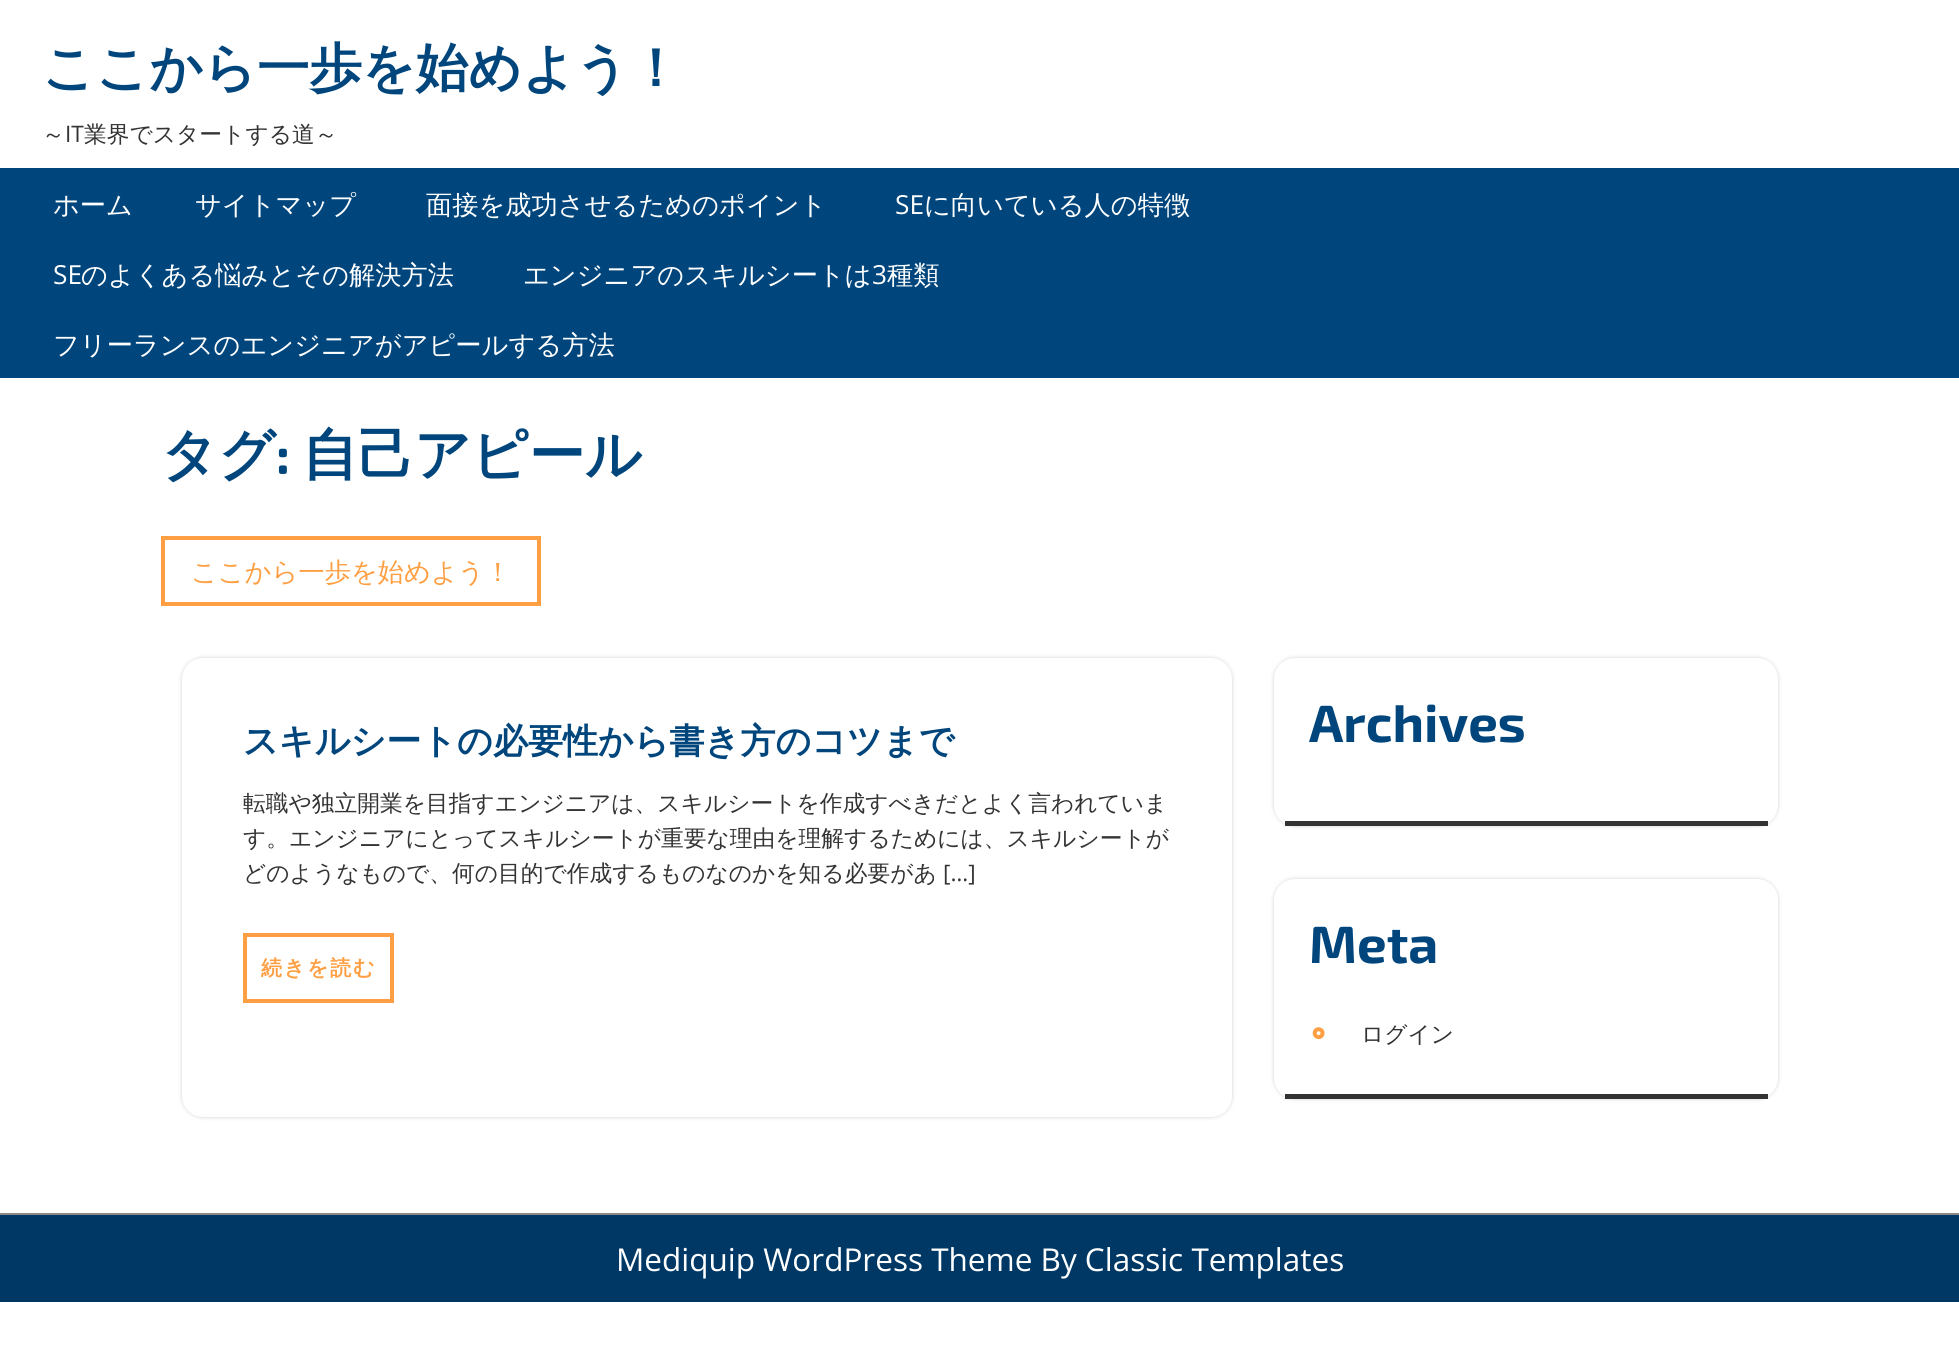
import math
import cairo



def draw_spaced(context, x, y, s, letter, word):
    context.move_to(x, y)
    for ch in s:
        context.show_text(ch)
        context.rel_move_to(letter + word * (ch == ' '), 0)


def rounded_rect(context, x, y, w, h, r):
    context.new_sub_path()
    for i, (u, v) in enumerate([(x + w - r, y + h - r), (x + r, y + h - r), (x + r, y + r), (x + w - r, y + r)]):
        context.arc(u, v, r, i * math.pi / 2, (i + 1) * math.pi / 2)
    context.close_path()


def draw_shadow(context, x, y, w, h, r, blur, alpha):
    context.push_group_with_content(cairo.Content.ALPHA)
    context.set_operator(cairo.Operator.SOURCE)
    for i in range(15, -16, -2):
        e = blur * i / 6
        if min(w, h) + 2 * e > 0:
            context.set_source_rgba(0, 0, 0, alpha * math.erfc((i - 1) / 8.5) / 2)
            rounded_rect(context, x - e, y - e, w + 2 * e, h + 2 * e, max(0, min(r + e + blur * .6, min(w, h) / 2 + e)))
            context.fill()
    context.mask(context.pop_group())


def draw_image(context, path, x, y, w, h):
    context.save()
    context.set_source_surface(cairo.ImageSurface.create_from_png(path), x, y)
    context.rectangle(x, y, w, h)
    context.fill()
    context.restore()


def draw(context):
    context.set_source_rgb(1, 1, 1)
    context.paint()
    context.set_source_rgb(0, 70 / 255, 124 / 255)
    context.rectangle(0, 168, 1959, 210)
    context.fill()
    context.rectangle(163, 538, 376, 66)
    context.set_source_rgb(1, 159 / 255, 67 / 255)
    context.set_line_width(4)
    context.stroke()
    context.set_source_rgb(207 / 255, 207 / 255, 207 / 255)
    draw_shadow(context, 182, 658, 1050, 459, 21, 2, 1)
    context.set_source_rgb(1, 1, 1)
    rounded_rect(context, 182, 658, 1050, 459, 21)
    context.fill()
    context.rectangle(245, 935, 147, 66)
    context.set_source_rgb(1, 159 / 255, 67 / 255)
    context.stroke()
    context.set_source_rgb(207 / 255, 207 / 255, 207 / 255)
    draw_shadow(context, 1274, 658, 504, 168, 21, 2, 1)
    context.set_source_rgb(1, 1, 1)
    rounded_rect(context, 1274, 658, 504, 168, 21)
    context.fill()
    context.set_source_rgb(51 / 255, 51 / 255, 51 / 255)
    context.rectangle(1285, 821, 483, 5)
    context.fill()
    context.set_source_rgb(207 / 255, 207 / 255, 207 / 255)
    draw_shadow(context, 1274, 879, 504, 220, 21, 2, 1)
    context.set_source_rgb(1, 1, 1)
    rounded_rect(context, 1274, 879, 504, 220, 21)
    context.fill()
    context.set_source_rgb(51 / 255, 51 / 255, 51 / 255)
    context.rectangle(1285, 1094, 483, 5)
    context.fill()
    draw_image(context, "images/1.png", 1312, 1027, 13, 13)
    context.set_source_rgb(0, 56 / 255, 101 / 255)
    context.rectangle(0, 1215, 1959, 87)
    context.fill()
    context.set_source_rgb(138 / 255, 138 / 255, 138 / 255)
    context.rectangle(0, 1213, 1959, 2)
    context.fill()
    context.select_font_face("WenQuanYi Zen Hei", cairo.FontSlant.NORMAL, cairo.FontWeight.BOLD)
    context.set_font_size(52.5)
    context.set_source_rgb(0, 70 / 255, 124 / 255)
    context.move_to(42, 86)
    context.show_text("ここから一歩を始めよう！")
    context.select_font_face("WenQuanYi Zen Hei Medium")
    context.set_font_size(22.75)
    context.set_source_rgb(51 / 255, 51 / 255, 51 / 255)
    context.move_to(42, 142)
    context.show_text("～")
    context.select_font_face("Open Sans")
    context.move_to(65, 142)
    context.show_text("IT")
    context.select_font_face("WenQuanYi Zen Hei Medium")
    context.move_to(84, 142)
    context.show_text("業界でスタートする道～")
    context.set_font_size(26.25)
    context.set_source_rgb(1, 1, 1)
    context.move_to(53, 214)
    context.show_text("ホーム")
    context.move_to(195, 214)
    context.show_text("サイトマップ")
    context.move_to(426, 214)
    context.show_text("面接を成功させるためのポイント")
    context.select_font_face("Open Sans")
    context.move_to(895, 214)
    context.show_text("SE")
    context.select_font_face("WenQuanYi Zen Hei Medium")
    context.move_to(924, 214)
    context.show_text("に向いている人の特徴")
    context.select_font_face("Open Sans")
    context.move_to(53, 284)
    context.show_text("SE")
    context.select_font_face("WenQuanYi Zen Hei Medium")
    context.move_to(81, 284)
    context.show_text("のよくある悩みとその解決方法")
    context.move_to(523, 284)
    context.show_text("エンジニアのスキルシートは")
    context.select_font_face("Open Sans")
    context.move_to(872, 284)
    context.show_text("3")
    context.select_font_face("WenQuanYi Zen Hei Medium")
    context.move_to(887, 284)
    context.show_text("種類")
    context.move_to(53, 354)
    context.show_text("フリーランスのエンジニアがアピールする方法")
    context.select_font_face("WenQuanYi Zen Hei", cairo.FontSlant.NORMAL, cairo.FontWeight.BOLD)
    context.set_font_size(56)
    context.set_source_rgb(0, 70 / 255, 124 / 255)
    context.move_to(161, 474)
    context.show_text("タグ")
    context.select_font_face("Exo 2", cairo.FontSlant.NORMAL, cairo.FontWeight.BOLD)
    context.move_to(276, 474)
    context.show_text(":")
    context.select_font_face("WenQuanYi Zen Hei", cairo.FontSlant.NORMAL, cairo.FontWeight.BOLD)
    context.move_to(302, 474)
    context.show_text("自己アピール")
    context.select_font_face("WenQuanYi Zen Hei Medium")
    context.set_font_size(26.25)
    context.set_source_rgb(1, 159 / 255, 67 / 255)
    context.move_to(191, 581)
    context.show_text("ここから一歩を始めよう！")
    context.select_font_face("WenQuanYi Zen Hei", cairo.FontSlant.NORMAL, cairo.FontWeight.BOLD)
    context.set_font_size(35)
    context.set_source_rgb(0, 70 / 255, 124 / 255)
    context.move_to(243, 753)
    context.show_text("スキルシートの必要性から書き方のコツまで")
    context.select_font_face("WenQuanYi Zen Hei Medium")
    context.set_font_size(22.75)
    context.set_source_rgb(51 / 255, 51 / 255, 51 / 255)
    context.move_to(243, 811)
    context.show_text("転職や独立開業を目指すエンジニアは、スキルシートを作成すべきだとよく言われていま")
    context.move_to(243, 846)
    context.show_text("す。エンジニアにとってスキルシートが重要な理由を理解するためには、スキルシートが")
    context.move_to(243, 881)
    context.show_text("どのようなもので、何の目的で作成するものなのかを知る必要があ")
    context.select_font_face("Open Sans")
    context.move_to(943, 881)
    context.show_text("[…]")
    context.select_font_face("WenQuanYi Zen Hei", cairo.FontSlant.NORMAL, cairo.FontWeight.BOLD)
    context.set_font_size(21)
    context.set_source_rgb(1, 159 / 255, 67 / 255)
    draw_spaced(context, 261, 975, "続きを読む", 1.75, 0)
    context.select_font_face("Exo 2", cairo.FontSlant.NORMAL, cairo.FontWeight.BOLD)
    context.set_font_size(52.5)
    context.set_source_rgb(0, 70 / 255, 124 / 255)
    context.move_to(1309, 742)
    context.show_text("Archives")
    context.move_to(1309, 963)
    context.show_text("Meta")
    context.select_font_face("WenQuanYi Zen Hei Medium")
    context.set_font_size(22.75)
    context.set_source_rgb(51 / 255, 51 / 255, 51 / 255)
    context.move_to(1361, 1042)
    context.show_text("ログイン")
    context.select_font_face("Open Sans")
    context.set_font_size(31.5)
    context.set_source_rgb(1, 1, 1)
    context.move_to(616, 1271)
    context.show_text("Mediquip WordPress Theme By Classic Templates")


surface = cairo.ImageSurface(cairo.Format.RGB24, 1959, 1371)
context = cairo.Context(surface)
options = cairo.FontOptions()
options.set_hint_metrics(cairo.HintMetrics.OFF)
options.set_hint_style(cairo.HintStyle.NONE)
context.set_font_options(options)
context.set_miter_limit(4)
draw(context)
surface.write_to_png("out.png")
